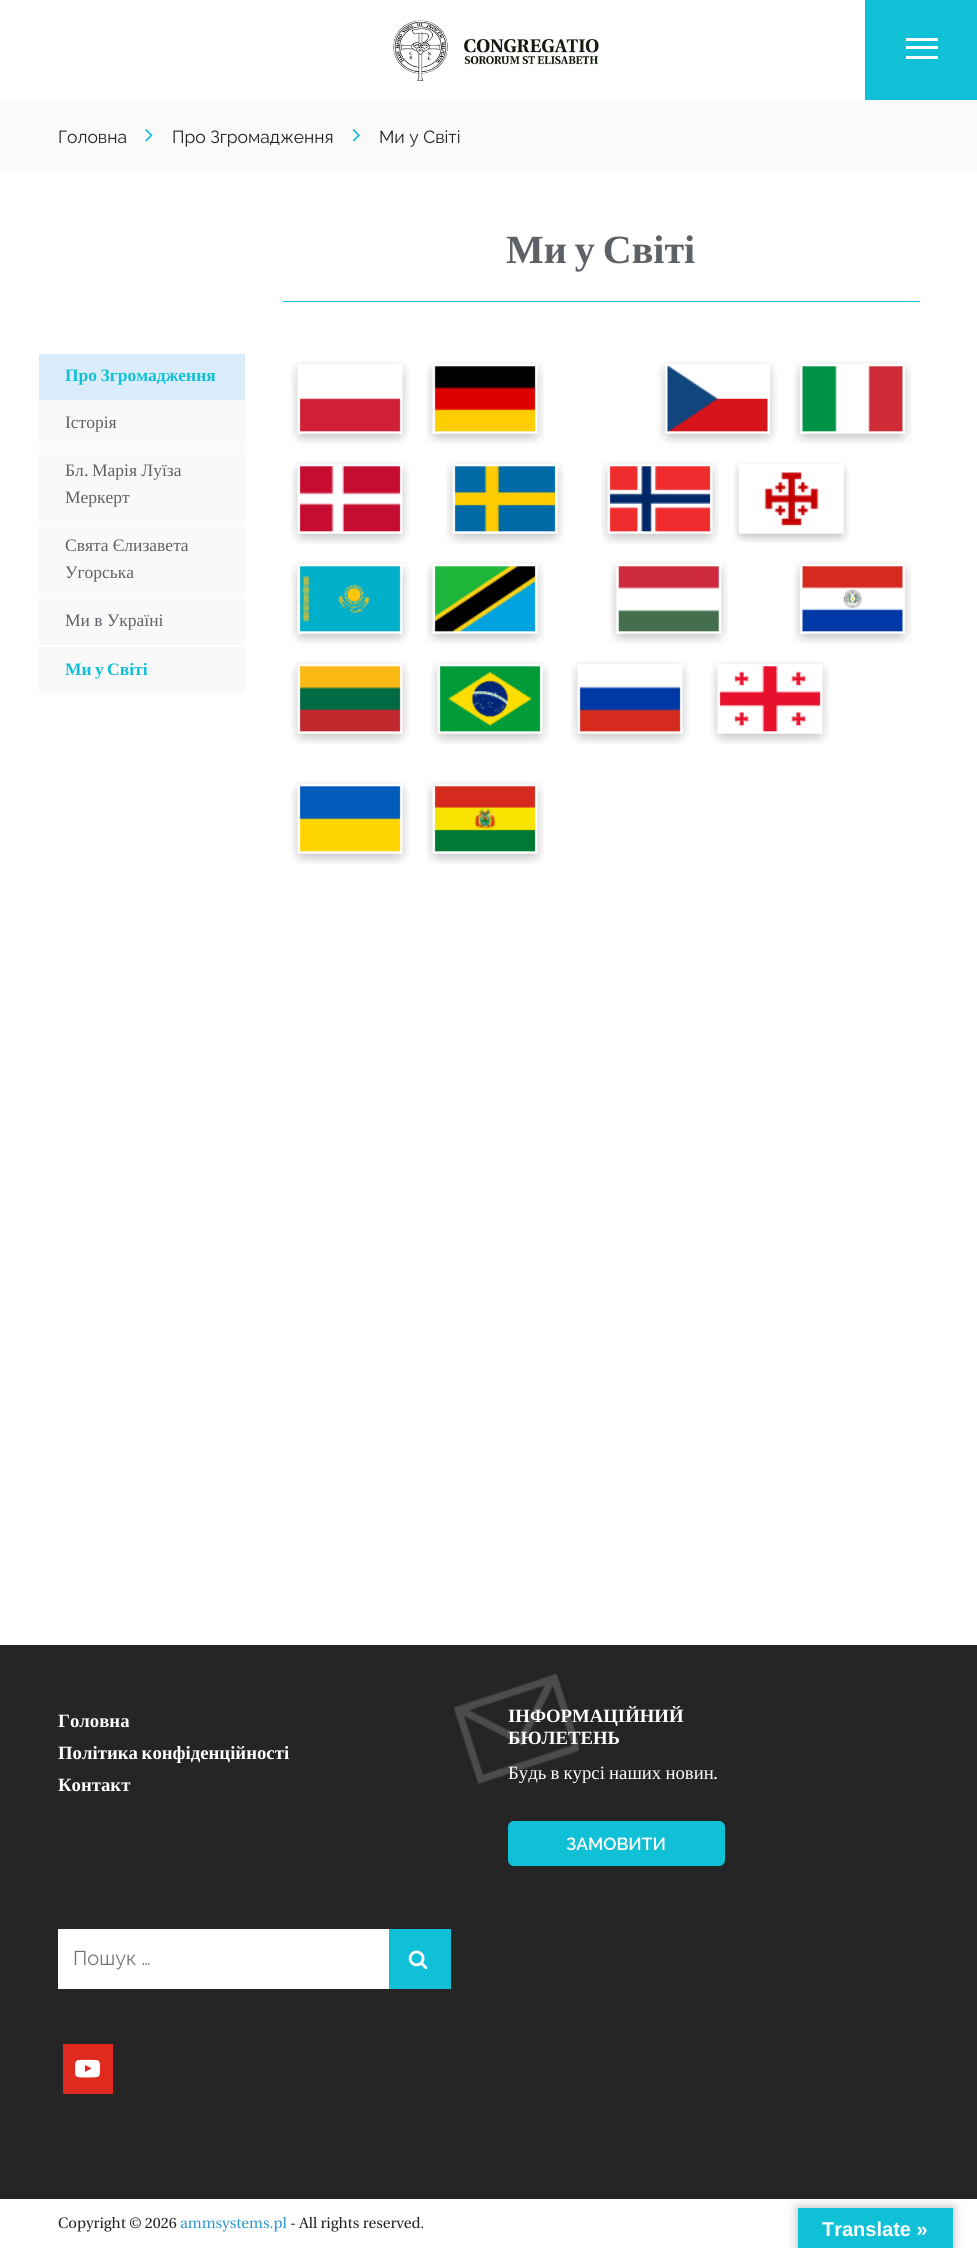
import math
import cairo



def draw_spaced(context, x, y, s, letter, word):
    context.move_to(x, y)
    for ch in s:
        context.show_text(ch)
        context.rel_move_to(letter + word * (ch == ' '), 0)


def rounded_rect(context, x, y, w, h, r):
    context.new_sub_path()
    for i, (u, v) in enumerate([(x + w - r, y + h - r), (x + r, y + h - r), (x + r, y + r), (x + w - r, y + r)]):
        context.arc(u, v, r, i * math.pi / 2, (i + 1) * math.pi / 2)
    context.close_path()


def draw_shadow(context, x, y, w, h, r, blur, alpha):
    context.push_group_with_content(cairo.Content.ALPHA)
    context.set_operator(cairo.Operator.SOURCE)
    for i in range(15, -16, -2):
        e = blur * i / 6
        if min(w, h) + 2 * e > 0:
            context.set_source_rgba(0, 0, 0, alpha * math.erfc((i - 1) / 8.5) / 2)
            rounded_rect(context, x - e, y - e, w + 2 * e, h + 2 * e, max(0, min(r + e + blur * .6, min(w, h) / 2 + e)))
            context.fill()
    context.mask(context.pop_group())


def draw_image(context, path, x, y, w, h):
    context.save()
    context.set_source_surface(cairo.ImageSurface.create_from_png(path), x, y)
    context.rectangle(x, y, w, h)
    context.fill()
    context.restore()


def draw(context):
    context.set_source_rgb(1, 1, 1)
    context.paint()
    draw_image(context, "images/1.png", 393, 20, 206, 61)
    context.set_source_rgb(16 / 255, 192 / 255, 215 / 255)
    context.rectangle(865, 0, 112, 100)
    context.fill()
    context.set_source_rgb(1, 1, 1)
    context.rectangle(906, 38, 32, 3)
    context.fill()
    context.rectangle(906, 46, 32, 3)
    context.fill()
    context.rectangle(906, 56, 32, 3)
    context.fill()
    context.set_source_rgb(250 / 255, 250 / 255, 250 / 255)
    context.rectangle(0, 100, 977, 73)
    context.fill()
    draw_image(context, "images/2.png", 145, 129, 8, 13)
    draw_image(context, "images/3.png", 352, 129, 8, 13)
    context.set_source_rgb(16 / 255, 192 / 255, 215 / 255)
    context.rectangle(283, 301, 637, 1)
    context.fill()
    draw_image(context, "images/4.png", 291, 361, 118, 83)
    draw_image(context, "images/5.png", 426, 361, 118, 83)
    draw_image(context, "images/6.png", 658, 361, 119, 83)
    draw_image(context, "images/7.png", 793, 361, 119, 83)
    draw_image(context, "images/8.png", 291, 461, 118, 83)
    draw_image(context, "images/9.png", 446, 461, 118, 83)
    draw_image(context, "images/10.png", 601, 461, 118, 83)
    draw_image(context, "images/11.png", 733, 462, 116, 81)
    draw_image(context, "images/12.png", 291, 561, 118, 83)
    draw_image(context, "images/13.png", 426, 561, 118, 83)
    draw_image(context, "images/14.png", 609, 561, 119, 83)
    draw_image(context, "images/15.png", 793, 561, 119, 83)
    draw_image(context, "images/16.png", 291, 661, 118, 83)
    draw_image(context, "images/17.png", 431, 661, 118, 83)
    draw_image(context, "images/18.png", 571, 661, 118, 83)
    draw_image(context, "images/19.png", 711, 661, 118, 83)
    draw_image(context, "images/20.png", 291, 781, 118, 83)
    draw_image(context, "images/21.png", 426, 781, 118, 83)
    context.set_source_rgb(218 / 255, 236 / 255, 249 / 255)
    context.rectangle(39, 354, 206, 46)
    context.fill()
    context.set_source_rgb(249 / 255, 249 / 255, 249 / 255)
    context.rectangle(39, 400, 206, 48)
    context.fill()
    context.set_source_rgb(1, 1, 1)
    context.rectangle(39, 446, 206, 1)
    context.fill()
    context.set_source_rgb(249 / 255, 249 / 255, 249 / 255)
    context.rectangle(39, 449, 206, 74)
    context.fill()
    context.set_source_rgb(1, 1, 1)
    context.rectangle(39, 521, 206, 1)
    context.fill()
    context.set_source_rgb(249 / 255, 249 / 255, 249 / 255)
    context.rectangle(39, 524, 206, 74)
    context.fill()
    context.set_source_rgb(1, 1, 1)
    context.rectangle(39, 596, 206, 1)
    context.fill()
    context.set_source_rgb(249 / 255, 249 / 255, 249 / 255)
    context.rectangle(39, 599, 206, 95)
    context.fill()
    context.set_source_rgb(1, 1, 1)
    context.rectangle(39, 645, 206, 2)
    context.fill()
    context.set_source_rgb(38 / 255, 37 / 255, 37 / 255)
    context.rectangle(0, 1645, 977, 554)
    context.fill()
    context.set_source_rgb(16 / 255, 192 / 255, 215 / 255)
    rounded_rect(context, 508, 1821, 217, 45, 6)
    context.fill()
    context.set_source_rgb(1, 1, 1)
    context.rectangle(58, 1929, 331, 60)
    context.fill()
    context.set_source_rgb(16 / 255, 192 / 255, 215 / 255)
    context.rectangle(389, 1929, 62, 60)
    context.fill()
    draw_image(context, "images/23.png", 408, 1950, 20, 20)
    context.set_source_rgb(224 / 255, 42 / 255, 32 / 255)
    context.rectangle(63, 2044, 50, 50)
    context.fill()
    draw_image(context, "images/24.png", 75, 2059, 26, 19)
    context.set_source_rgb(0, 0, 0)
    draw_shadow(context, 798, 2208, 155, 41, 0, 5.5, 0.3)
    context.set_source_rgb(16 / 255, 192 / 255, 215 / 255)
    context.rectangle(798, 2208, 155, 40)
    context.fill()
    context.select_font_face("Raleway")
    context.set_font_size(17.5)
    context.set_source_rgb(33 / 255, 33 / 255, 33 / 255)
    context.move_to(58, 143)
    context.show_text("Головна")
    context.move_to(172, 143)
    context.show_text("Про Згромадження")
    context.move_to(379, 143)
    context.show_text("Ми у Світі")
    context.select_font_face("Liberation Serif", cairo.FontSlant.NORMAL, cairo.FontWeight.BOLD)
    context.set_font_size(40)
    context.set_source_rgb(94 / 255, 98 / 255, 103 / 255)
    draw_spaced(context, 506, 263, "Ми у Світі", 0, -2)
    context.set_font_size(17.5)
    context.set_source_rgb(16 / 255, 192 / 255, 215 / 255)
    draw_spaced(context, 65, 381, "Про Згромадження", 0, -1)
    context.select_font_face("Liberation Serif")
    context.set_source_rgb(94 / 255, 98 / 255, 103 / 255)
    context.move_to(65, 428)
    context.show_text("Історія")
    context.move_to(65, 476)
    context.show_text("Бл")
    context.select_font_face("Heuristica")
    context.move_to(84, 476)
    context.show_text(".")
    context.select_font_face("Liberation Serif")
    context.move_to(92, 476)
    context.show_text("Марія Луїза")
    context.move_to(65, 503)
    context.show_text("Меркерт")
    context.move_to(65, 551)
    context.show_text("Свята Єлизавета")
    context.move_to(65, 578)
    context.show_text("Угорська")
    context.move_to(65, 626)
    context.show_text("Ми в Україні")
    context.select_font_face("Liberation Serif", cairo.FontSlant.NORMAL, cairo.FontWeight.BOLD)
    context.set_source_rgb(16 / 255, 192 / 255, 215 / 255)
    draw_spaced(context, 65, 675, "Ми у Світі", 0, -1)
    context.set_font_size(18.75)
    context.set_source_rgb(1, 1, 1)
    context.move_to(58, 1727)
    context.show_text("Головна")
    draw_spaced(context, 58, 1759, "Політика конфіденційності", 0, -1)
    context.move_to(58, 1791)
    context.show_text("Контакт")
    context.move_to(508, 1722)
    context.show_text("ІНФОРМАЦІЙНИЙ")
    context.move_to(508, 1744)
    context.show_text("БЮЛЕТЕНЬ")
    context.select_font_face("Liberation Serif")
    draw_spaced(context, 508, 1779, "Будь в курсі наших новин", 0, -0.5)
    draw_image(context, "images/22.png", 453, 1673, 126, 111)
    context.select_font_face("Heuristica")
    context.move_to(713, 1779)
    context.show_text(".")
    context.select_font_face("Raleway SemiBold")
    context.set_font_size(17.5)
    context.move_to(566, 1850)
    context.show_text("ЗАМОВИТИ")
    context.select_font_face("Raleway")
    context.set_font_size(20)
    context.set_source_rgb(117 / 255, 117 / 255, 117 / 255)
    context.move_to(73, 1965)
    context.show_text("Пошук …")
    context.select_font_face("Heuristica")
    context.set_font_size(15)
    context.set_source_rgb(33 / 255, 33 / 255, 33 / 255)
    context.move_to(58, 2228)
    context.show_text("Copyright © 2026")
    context.set_source_rgb(44 / 255, 150 / 255, 211 / 255)
    context.move_to(180, 2228)
    context.show_text("ammsystems.pl")
    context.set_source_rgb(33 / 255, 33 / 255, 33 / 255)
    context.move_to(290, 2228)
    context.show_text("- All rights reserved.")
    context.select_font_face("Liberation Sans", cairo.FontSlant.NORMAL, cairo.FontWeight.BOLD)
    context.set_font_size(20)
    context.set_source_rgb(1, 1, 1)
    context.move_to(822, 2236)
    context.show_text("Translate »")


surface = cairo.ImageSurface(cairo.Format.RGB24, 977, 2248)
context = cairo.Context(surface)
options = cairo.FontOptions()
options.set_hint_metrics(cairo.HintMetrics.OFF)
options.set_hint_style(cairo.HintStyle.NONE)
context.set_font_options(options)
context.set_miter_limit(4)
draw(context)
surface.write_to_png("out.png")
